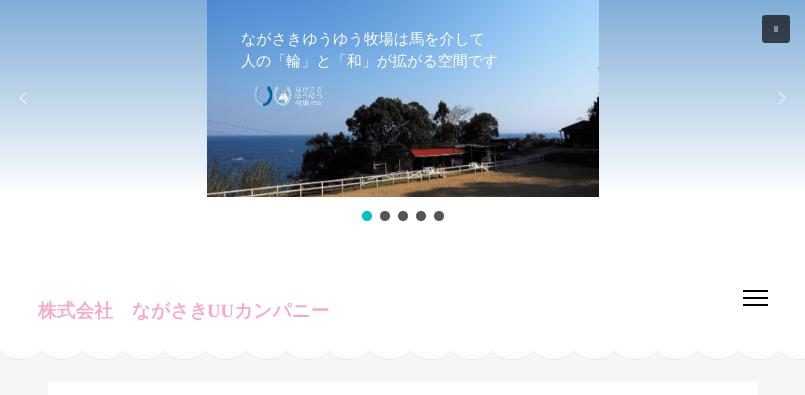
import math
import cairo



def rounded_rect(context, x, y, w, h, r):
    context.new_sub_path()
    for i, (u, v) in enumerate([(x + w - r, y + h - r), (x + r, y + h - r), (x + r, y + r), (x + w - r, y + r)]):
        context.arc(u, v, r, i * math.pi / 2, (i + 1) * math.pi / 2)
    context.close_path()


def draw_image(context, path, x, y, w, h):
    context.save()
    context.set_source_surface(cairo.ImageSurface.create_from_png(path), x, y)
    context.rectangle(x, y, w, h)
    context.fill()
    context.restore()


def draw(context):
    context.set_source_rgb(1, 1, 1)
    context.paint()
    gradient = cairo.LinearGradient(403, 0, 403, 197)
    gradient.add_color_stop_rgba(0, 128 / 255, 173 / 255, 214 / 255, 1)
    gradient.add_color_stop_rgba(1, 1, 1, 1, 1)
    context.set_source(gradient)
    context.rectangle(0, 0, 805, 193)
    context.fill()
    draw_image(context, "images/1.png", 207, 0, 392, 197)
    draw_image(context, "images/2.png", 254, 86, 68, 20)
    context.set_source_rgba(0, 0, 0, 0.67)
    rounded_rect(context, 762, 15, 28, 28, 3)
    context.fill()
    context.set_source_rgb(131 / 255, 139 / 255, 146 / 255)
    context.rectangle(774, 26, 4, 6)
    context.fill()
    draw_image(context, "images/3.png", 19, 92, 8, 12)
    draw_image(context, "images/4.png", 778, 92, 8, 12)
    context.set_source_rgb(0, 193 / 255, 196 / 255)
    context.arc(367, 216, 5, 0, 2 * math.pi)
    context.fill()
    context.set_source_rgb(84 / 255, 84 / 255, 84 / 255)
    context.arc(385, 216, 5, 0, 2 * math.pi)
    context.fill()
    context.arc(403, 216, 5, 0, 2 * math.pi)
    context.fill()
    context.arc(421, 216, 5, 0, 2 * math.pi)
    context.fill()
    context.arc(439, 216, 5, 0, 2 * math.pi)
    context.fill()
    context.set_source_rgb(247 / 255, 246 / 255, 244 / 255)
    context.rectangle(0, 351, 805, 44)
    context.fill()
    context.set_source_rgb(0, 0, 0)
    context.rectangle(743, 290, 25, 2)
    context.fill()
    context.rectangle(743, 297, 25, 2)
    context.fill()
    context.rectangle(743, 304, 25, 2)
    context.fill()
    draw_image(context, "images/5.png", 0, 351, 805, 9)
    context.set_source_rgb(1, 1, 1)
    context.rectangle(48, 381, 710, 14)
    context.fill()
    context.select_font_face("WenQuanYi Zen Hei Medium")
    context.set_font_size(15)
    context.move_to(241, 44)
    context.show_text("ながさきゆうゆう牧場は馬を介して")
    context.move_to(241, 66)
    context.show_text("人の「輪」と「和」が拡がる空間です")
    context.select_font_face("WenQuanYi Zen Hei", cairo.FontSlant.NORMAL, cairo.FontWeight.BOLD)
    context.set_font_size(18.75)
    context.set_source_rgb(246 / 255, 168 / 255, 198 / 255)
    context.move_to(38, 317)
    context.show_text("株式会社　ながさき")
    context.select_font_face("Liberation Serif", cairo.FontSlant.NORMAL, cairo.FontWeight.BOLD)
    context.move_to(207, 317)
    context.show_text("UU")
    context.select_font_face("WenQuanYi Zen Hei", cairo.FontSlant.NORMAL, cairo.FontWeight.BOLD)
    context.move_to(234, 317)
    context.show_text("カンパニー")


surface = cairo.ImageSurface(cairo.Format.RGB24, 805, 395)
context = cairo.Context(surface)
options = cairo.FontOptions()
options.set_hint_metrics(cairo.HintMetrics.OFF)
options.set_hint_style(cairo.HintStyle.NONE)
context.set_font_options(options)
context.set_miter_limit(4)
draw(context)
surface.write_to_png("out.png")
